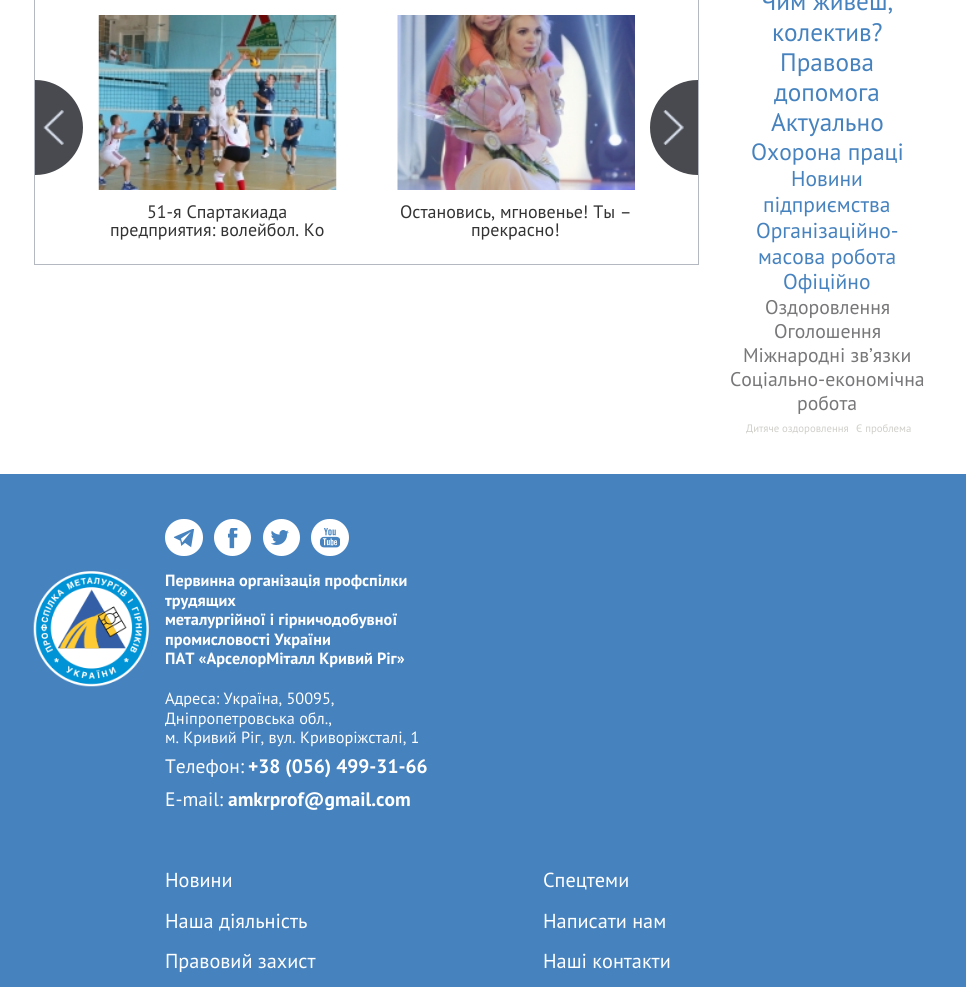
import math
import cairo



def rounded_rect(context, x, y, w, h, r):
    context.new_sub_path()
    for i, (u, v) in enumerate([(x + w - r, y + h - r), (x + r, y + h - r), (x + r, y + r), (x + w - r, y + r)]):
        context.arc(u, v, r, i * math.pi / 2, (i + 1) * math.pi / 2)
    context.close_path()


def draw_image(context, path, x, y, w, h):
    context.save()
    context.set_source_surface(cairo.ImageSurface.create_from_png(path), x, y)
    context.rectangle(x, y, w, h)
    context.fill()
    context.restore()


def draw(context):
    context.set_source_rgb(1, 1, 1)
    context.paint()
    context.rectangle(34.5, -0.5, 664, 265)
    context.set_source_rgb(180 / 255, 185 / 255, 193 / 255)
    context.set_line_width(1)
    context.stroke()
    context.set_source_rgb(72 / 255, 74 / 255, 79 / 255)
    context.new_path()
    context.move_to(35, 80)
    context.line_to(35.5, 80)
    context.curve_to(61.5, 80, 83, 101.5, 83, 127.5)
    context.curve_to(83, 153.5, 61.5, 175, 35.5, 175)
    context.line_to(35, 175)
    context.close_path()
    context.fill()
    draw_image(context, "images/1.png", 43, 110, 21, 35)
    context.new_path()
    context.move_to(697.5, 80)
    context.line_to(698, 80)
    context.line_to(698, 175)
    context.line_to(697.5, 175)
    context.curve_to(671.5, 175, 650, 153.5, 650, 127.5)
    context.curve_to(650, 101.5, 671.5, 80, 697.5, 80)
    context.close_path()
    context.fill()
    draw_image(context, "images/2.png", 663, 110, 21, 35)
    draw_image(context, "images/3.png", 98, 15, 239, 175)
    draw_image(context, "images/4.png", 397, 15, 238, 175)
    context.set_source_rgb(70 / 255, 130 / 255, 190 / 255)
    context.rectangle(0, 474, 966, 513)
    context.fill()
    draw_image(context, "images/5.png", 33, 571, 116, 116)
    context.set_source_rgb(1, 1, 1)
    rounded_rect(context, 165, 519, 38, 37, 18.5)
    context.fill()
    draw_image(context, "images/6.png", 174, 529, 21, 19)
    context.arc(232.5, 537.5, 18.5, 0, 2 * math.pi)
    context.fill()
    draw_image(context, "images/7.png", 228, 528, 10, 21)
    context.arc(281.5, 537.5, 18.5, 0, 2 * math.pi)
    context.fill()
    draw_image(context, "images/8.png", 271, 530, 18, 15)
    rounded_rect(context, 311, 519, 38, 37, 18.5)
    context.fill()
    draw_image(context, "images/9.png", 320, 528, 20, 20)
    context.select_font_face("PT Sans")
    context.set_font_size(18)
    context.set_source_rgb(51 / 255, 51 / 255, 51 / 255)
    context.move_to(147, 218)
    context.show_text("51-я Спартакиада")
    context.move_to(110, 236)
    context.show_text("предприятия: волейбол. Ко")
    context.move_to(400, 218)
    context.show_text("Остановись, мгновенье! Ты –")
    context.move_to(471, 236)
    context.show_text("прекрасно!")
    context.set_font_size(25.25)
    context.set_source_rgb(70 / 255, 130 / 255, 190 / 255)
    context.move_to(761, 10)
    context.show_text("Чим живеш,")
    context.move_to(772, 41)
    context.show_text("колектив?")
    context.move_to(780, 71)
    context.show_text("Правова")
    context.move_to(774, 101)
    context.show_text("допомога")
    context.move_to(771, 131)
    context.show_text("Актуально")
    context.set_font_size(23.5)
    context.move_to(751, 160)
    context.show_text("Охорона праці")
    context.set_font_size(21.5)
    context.move_to(791, 186)
    context.show_text("Новини")
    context.move_to(763, 212)
    context.show_text("підприємства")
    context.move_to(756, 238)
    context.show_text("Організаційно-")
    context.move_to(758, 264)
    context.show_text("масова робота")
    context.move_to(783, 289)
    context.show_text("Офіційно")
    context.set_font_size(19.75)
    context.set_source_rgb(119 / 255, 119 / 255, 121 / 255)
    context.move_to(765, 314)
    context.show_text("Оздоровлення")
    context.move_to(774, 338)
    context.show_text("Оголошення")
    context.move_to(743, 362)
    context.show_text("Міжнародні зв’язки")
    context.move_to(730, 386)
    context.show_text("Соціально-економічна")
    context.move_to(797, 410)
    context.show_text("робота")
    context.set_font_size(10.75)
    context.set_source_rgb(207 / 255, 206 / 255, 201 / 255)
    context.move_to(746, 432)
    context.show_text("Дитяче оздоровлення")
    context.move_to(856, 432)
    context.show_text("Є проблема")
    context.select_font_face("PT Sans", cairo.FontSlant.NORMAL, cairo.FontWeight.BOLD)
    context.set_font_size(16.25)
    context.set_source_rgb(1, 1, 1)
    context.move_to(165, 586)
    context.show_text("Первинна організація профспілки")
    context.move_to(165, 606)
    context.show_text("трудящих")
    context.move_to(165, 625)
    context.show_text("металургійної і гірничодобувної")
    context.move_to(165, 645)
    context.show_text("промисловості України")
    context.move_to(165, 664)
    context.show_text("ПАТ «АрселорМіталл Кривий Ріг»")
    context.select_font_face("PT Sans")
    context.move_to(165, 704)
    context.show_text("Адреса: Україна, 50095,")
    context.move_to(165, 724)
    context.show_text("Дніпропетровська обл.,")
    context.move_to(165, 743)
    context.show_text("м. Кривий Ріг, вул. Криворіжсталі, 1")
    context.set_font_size(19.5)
    context.move_to(165, 773)
    context.show_text("Телефон:")
    context.select_font_face("PT Sans", cairo.FontSlant.NORMAL, cairo.FontWeight.BOLD)
    context.move_to(248, 773)
    context.show_text("+38 (056) 499-31-66")
    context.select_font_face("PT Sans")
    context.move_to(165, 806)
    context.show_text("E-mail:")
    context.select_font_face("PT Sans", cairo.FontSlant.NORMAL, cairo.FontWeight.BOLD)
    context.move_to(228, 806)
    context.show_text("amkrprof@gmail.com")
    context.select_font_face("PT Sans")
    context.set_font_size(20.25)
    context.move_to(165, 887)
    context.show_text("Новини")
    context.move_to(543, 887)
    context.show_text("Cпецтеми")
    context.move_to(165, 928)
    context.show_text("Наша діяльність")
    context.move_to(543, 928)
    context.show_text("Написати нам")
    context.move_to(165, 968)
    context.show_text("Правовий захист")
    context.move_to(543, 968)
    context.show_text("Наші контакти")


surface = cairo.ImageSurface(cairo.Format.RGB24, 966, 987)
context = cairo.Context(surface)
options = cairo.FontOptions()
options.set_hint_metrics(cairo.HintMetrics.OFF)
options.set_hint_style(cairo.HintStyle.NONE)
context.set_font_options(options)
context.set_miter_limit(4)
draw(context)
surface.write_to_png("out.png")
